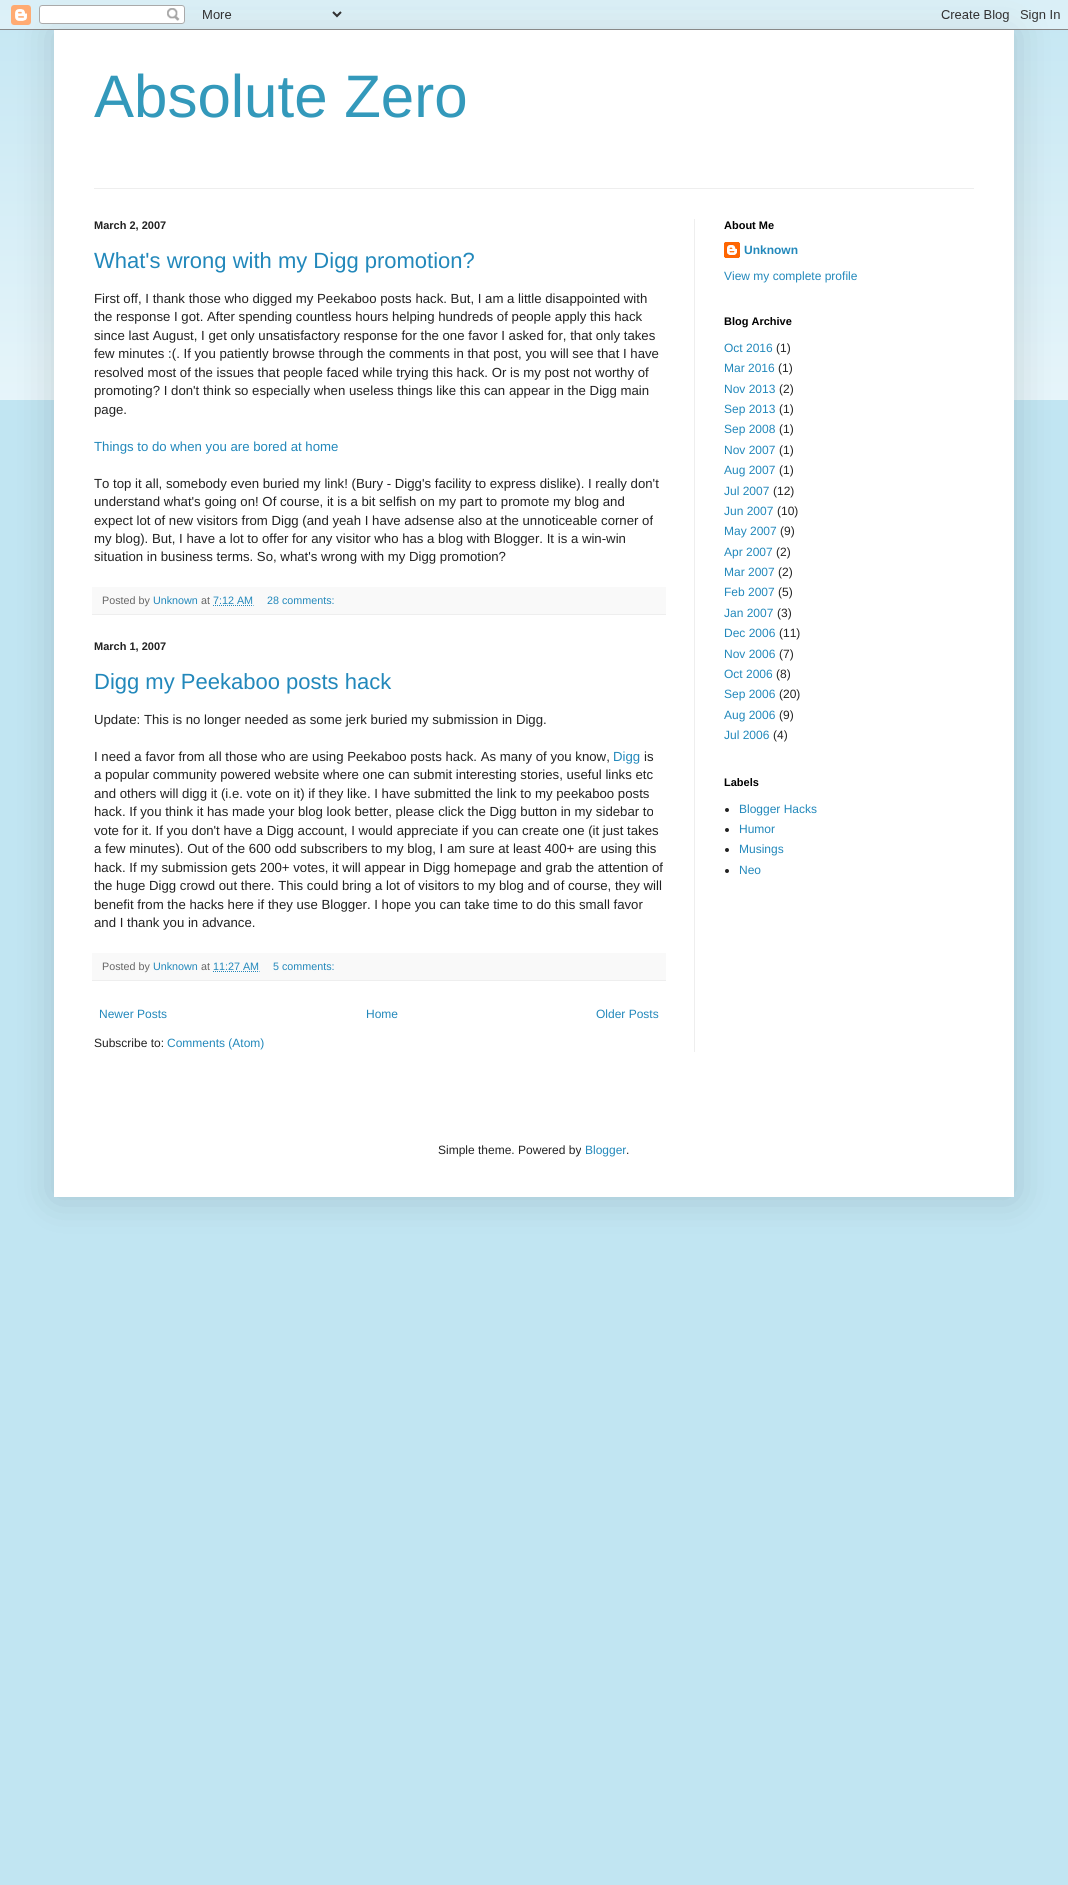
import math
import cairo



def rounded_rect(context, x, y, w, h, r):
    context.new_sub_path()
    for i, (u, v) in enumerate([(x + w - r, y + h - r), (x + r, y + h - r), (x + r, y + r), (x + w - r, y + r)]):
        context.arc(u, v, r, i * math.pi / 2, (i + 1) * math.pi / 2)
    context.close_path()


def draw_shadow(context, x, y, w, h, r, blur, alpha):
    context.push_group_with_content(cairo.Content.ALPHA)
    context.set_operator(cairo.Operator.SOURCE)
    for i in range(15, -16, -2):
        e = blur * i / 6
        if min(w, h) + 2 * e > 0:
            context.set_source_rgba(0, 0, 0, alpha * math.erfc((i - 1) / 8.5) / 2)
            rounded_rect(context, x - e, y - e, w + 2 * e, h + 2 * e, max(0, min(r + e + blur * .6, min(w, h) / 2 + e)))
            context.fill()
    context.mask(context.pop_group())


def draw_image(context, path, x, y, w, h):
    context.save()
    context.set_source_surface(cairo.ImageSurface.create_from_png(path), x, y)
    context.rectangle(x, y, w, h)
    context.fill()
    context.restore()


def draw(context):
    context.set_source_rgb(193 / 255, 229 / 255, 242 / 255)
    context.paint()
    draw_image(context, "images/2.png", 0, 10, 1068, 390)
    context.set_source_rgb(0, 0, 0)
    draw_shadow(context, 54, 30, 960, 1167, 0, 20, 0.15)
    draw_image(context, "images/1.png", 0, 0, 1068, 30)
    context.set_source_rgb(1, 1, 1)
    context.rectangle(54, 30, 960, 1167)
    context.fill()
    context.set_source_rgb(238 / 255, 238 / 255, 238 / 255)
    context.rectangle(94, 188, 880, 1)
    context.fill()
    context.rectangle(694, 219, 1, 833)
    context.fill()
    context.set_source_rgb(249 / 255, 249 / 255, 249 / 255)
    context.rectangle(92, 587, 574, 27)
    context.fill()
    context.set_source_rgb(238 / 255, 238 / 255, 238 / 255)
    context.rectangle(92, 614, 574, 1)
    context.fill()
    context.new_path()
    context.move_to(213, 605.5)
    context.line_to(253.5, 605.5)
    context.set_source_rgb(34 / 255, 136 / 255, 187 / 255)
    context.set_line_width(1)
    context.set_dash([1, 1])
    context.stroke()
    context.set_source_rgb(249 / 255, 249 / 255, 249 / 255)
    context.rectangle(92, 953, 574, 27)
    context.fill()
    context.set_source_rgb(238 / 255, 238 / 255, 238 / 255)
    context.rectangle(92, 980, 574, 1)
    context.fill()
    context.new_path()
    context.move_to(213, 971.5)
    context.line_to(259.5, 971.5)
    context.set_source_rgb(34 / 255, 136 / 255, 187 / 255)
    context.stroke()
    draw_image(context, "images/3.png", 724, 242, 16, 16)
    context.set_source_rgb(34 / 255, 34 / 255, 34 / 255)
    context.arc(727, 810, 2, 0, 2 * math.pi)
    context.fill()
    context.arc(727, 830, 2, 0, 2 * math.pi)
    context.fill()
    context.arc(727, 850, 2, 0, 2 * math.pi)
    context.fill()
    context.arc(727, 871, 2, 0, 2 * math.pi)
    context.fill()
    context.select_font_face("Liberation Sans")
    context.set_font_size(60)
    context.set_source_rgb(51 / 255, 153 / 255, 187 / 255)
    context.move_to(94, 117)
    context.show_text("Absolute Zero")
    context.select_font_face("Liberation Sans", cairo.FontSlant.NORMAL, cairo.FontWeight.BOLD)
    context.set_font_size(11)
    context.set_source_rgb(34 / 255, 34 / 255, 34 / 255)
    context.move_to(94, 229)
    context.show_text("March 2, 2007")
    context.select_font_face("Liberation Sans")
    context.set_font_size(22)
    context.set_source_rgb(34 / 255, 136 / 255, 187 / 255)
    context.move_to(94, 268)
    context.show_text("What's wrong with my Digg promotion?")
    context.set_font_size(13.2)
    context.set_source_rgb(34 / 255, 34 / 255, 34 / 255)
    context.move_to(94, 303)
    context.show_text("First off, I thank those who digged my Peekaboo posts hack. But, I am a little disappointed with")
    context.move_to(94, 321)
    context.show_text("the response I got. After spending countless hours helping hundreds of people apply this hack")
    context.move_to(94, 340)
    context.show_text("since last August, I get only unsatisfactory response for the one favor I asked for, that only takes")
    context.move_to(94, 358)
    context.show_text("few minutes :(. If you patiently browse through the comments in that post, you will see that I have")
    context.move_to(94, 377)
    context.show_text("resolved most of the issues that people faced while trying this hack. Or is my post not worthy of")
    context.move_to(94, 395)
    context.show_text("promoting? I don't think so especially when useless things like this can appear in the Digg main")
    context.move_to(94, 414)
    context.show_text("page.")
    context.set_source_rgb(34 / 255, 136 / 255, 187 / 255)
    context.move_to(94, 451)
    context.show_text("Things to do when you are bored at home")
    context.set_source_rgb(34 / 255, 34 / 255, 34 / 255)
    context.move_to(94, 488)
    context.show_text("To top it all, somebody even buried my link! (Bury - Digg's facility to express dislike). I really don't")
    context.move_to(94, 506)
    context.show_text("understand what's going on! Of course, it is a bit selfish on my part to promote my blog and")
    context.move_to(94, 525)
    context.show_text("expect lot of new visitors from Digg (and yeah I have adsense also at the unnoticeable corner of")
    context.move_to(94, 543)
    context.show_text("my blog). But, I have a lot to offer for any visitor who has a blog with Blogger. It is a win-win")
    context.move_to(94, 561)
    context.show_text("situation in business terms. So, what's wrong with my Digg promotion?")
    context.set_font_size(10.75)
    context.set_source_rgb(102 / 255, 102 / 255, 102 / 255)
    context.move_to(102, 604)
    context.show_text("Posted by")
    context.set_source_rgb(34 / 255, 136 / 255, 187 / 255)
    context.move_to(153, 604)
    context.show_text("Unknown")
    context.set_source_rgb(102 / 255, 102 / 255, 102 / 255)
    context.move_to(201, 604)
    context.show_text("at")
    context.set_source_rgb(34 / 255, 136 / 255, 187 / 255)
    context.move_to(213, 604)
    context.show_text("7:12 AM")
    context.move_to(267, 604)
    context.show_text("28 comments:")
    context.select_font_face("Liberation Sans", cairo.FontSlant.NORMAL, cairo.FontWeight.BOLD)
    context.set_font_size(11)
    context.set_source_rgb(34 / 255, 34 / 255, 34 / 255)
    context.move_to(94, 650)
    context.show_text("March 1, 2007")
    context.select_font_face("Liberation Sans")
    context.set_font_size(22)
    context.set_source_rgb(34 / 255, 136 / 255, 187 / 255)
    context.move_to(94, 689)
    context.show_text("Digg my Peekaboo posts hack")
    context.set_font_size(13.2)
    context.set_source_rgb(34 / 255, 34 / 255, 34 / 255)
    context.move_to(94, 724)
    context.show_text("Update: This is no longer needed as some jerk buried my submission in Digg.")
    context.move_to(94, 761)
    context.show_text("I need a favor from all those who are using Peekaboo posts hack. As many of you know,")
    context.set_source_rgb(34 / 255, 136 / 255, 187 / 255)
    context.move_to(613, 761)
    context.show_text("Digg")
    context.set_source_rgb(34 / 255, 34 / 255, 34 / 255)
    context.move_to(644, 761)
    context.show_text("is")
    context.move_to(94, 779)
    context.show_text("a popular community powered website where one can submit interesting stories, useful links etc")
    context.move_to(94, 798)
    context.show_text("and others will digg it (i.e. vote on it) if they like. I have submitted the link to my peekaboo posts")
    context.move_to(94, 816)
    context.show_text("hack. If you think it has made your blog look better, please click the Digg button in my sidebar to")
    context.move_to(94, 835)
    context.show_text("vote for it. If you don't have a Digg account, I would appreciate if you can create one (it just takes")
    context.move_to(94, 853)
    context.show_text("a few minutes). Out of the 600 odd subscribers to my blog, I am sure at least 400+ are using this")
    context.move_to(94, 872)
    context.show_text("hack. If my submission gets 200+ votes, it will appear in Digg homepage and grab the attention of")
    context.move_to(94, 890)
    context.show_text("the huge Digg crowd out there. This could bring a lot of visitors to my blog and of course, they will")
    context.move_to(94, 909)
    context.show_text("benefit from the hacks here if they use Blogger. I hope you can take time to do this small favor")
    context.move_to(94, 927)
    context.show_text("and I thank you in advance.")
    context.set_font_size(10.75)
    context.set_source_rgb(102 / 255, 102 / 255, 102 / 255)
    context.move_to(102, 970)
    context.show_text("Posted by")
    context.set_source_rgb(34 / 255, 136 / 255, 187 / 255)
    context.move_to(153, 970)
    context.show_text("Unknown")
    context.set_source_rgb(102 / 255, 102 / 255, 102 / 255)
    context.move_to(201, 970)
    context.show_text("at")
    context.set_source_rgb(34 / 255, 136 / 255, 187 / 255)
    context.move_to(213, 970)
    context.show_text("11:27 AM")
    context.move_to(273, 970)
    context.show_text("5 comments:")
    context.set_font_size(12)
    context.move_to(99, 1018)
    context.show_text("Newer Posts")
    context.move_to(366, 1018)
    context.show_text("Home")
    context.move_to(596, 1018)
    context.show_text("Older Posts")
    context.set_source_rgb(34 / 255, 34 / 255, 34 / 255)
    context.move_to(94, 1047)
    context.show_text("Subscribe to:")
    context.set_source_rgb(34 / 255, 136 / 255, 187 / 255)
    context.move_to(167, 1047)
    context.show_text("Comments (Atom)")
    context.select_font_face("Liberation Sans", cairo.FontSlant.NORMAL, cairo.FontWeight.BOLD)
    context.set_font_size(11)
    context.set_source_rgb(0, 0, 0)
    context.move_to(724, 229)
    context.show_text("About Me")
    context.set_font_size(12)
    context.set_source_rgb(34 / 255, 136 / 255, 187 / 255)
    context.move_to(744, 254)
    context.show_text("Unknown")
    context.select_font_face("Liberation Sans")
    context.move_to(724, 280)
    context.show_text("View my complete profile")
    context.select_font_face("Liberation Sans", cairo.FontSlant.NORMAL, cairo.FontWeight.BOLD)
    context.set_font_size(11)
    context.set_source_rgb(0, 0, 0)
    context.move_to(724, 325)
    context.show_text("Blog Archive")
    context.select_font_face("Liberation Sans")
    context.set_font_size(12)
    context.set_source_rgb(34 / 255, 136 / 255, 187 / 255)
    context.move_to(724, 352)
    context.show_text("Oct 2016")
    context.set_source_rgb(34 / 255, 34 / 255, 34 / 255)
    context.move_to(776, 352)
    context.show_text("(1)")
    context.set_source_rgb(34 / 255, 136 / 255, 187 / 255)
    context.move_to(724, 372)
    context.show_text("Mar 2016")
    context.set_source_rgb(34 / 255, 34 / 255, 34 / 255)
    context.move_to(778, 372)
    context.show_text("(1)")
    context.set_source_rgb(34 / 255, 136 / 255, 187 / 255)
    context.move_to(724, 393)
    context.show_text("Nov 2013")
    context.set_source_rgb(34 / 255, 34 / 255, 34 / 255)
    context.move_to(779, 393)
    context.show_text("(2)")
    context.set_source_rgb(34 / 255, 136 / 255, 187 / 255)
    context.move_to(724, 413)
    context.show_text("Sep 2013")
    context.set_source_rgb(34 / 255, 34 / 255, 34 / 255)
    context.move_to(779, 413)
    context.show_text("(1)")
    context.set_source_rgb(34 / 255, 136 / 255, 187 / 255)
    context.move_to(724, 433)
    context.show_text("Sep 2008")
    context.set_source_rgb(34 / 255, 34 / 255, 34 / 255)
    context.move_to(779, 433)
    context.show_text("(1)")
    context.set_source_rgb(34 / 255, 136 / 255, 187 / 255)
    context.move_to(724, 454)
    context.show_text("Nov 2007")
    context.set_source_rgb(34 / 255, 34 / 255, 34 / 255)
    context.move_to(779, 454)
    context.show_text("(1)")
    context.set_source_rgb(34 / 255, 136 / 255, 187 / 255)
    context.move_to(724, 474)
    context.show_text("Aug 2007")
    context.set_source_rgb(34 / 255, 34 / 255, 34 / 255)
    context.move_to(779, 474)
    context.show_text("(1)")
    context.set_source_rgb(34 / 255, 136 / 255, 187 / 255)
    context.move_to(724, 495)
    context.show_text("Jul 2007")
    context.set_source_rgb(34 / 255, 34 / 255, 34 / 255)
    context.move_to(773, 495)
    context.show_text("(12)")
    context.set_source_rgb(34 / 255, 136 / 255, 187 / 255)
    context.move_to(724, 515)
    context.show_text("Jun 2007")
    context.set_source_rgb(34 / 255, 34 / 255, 34 / 255)
    context.move_to(777, 515)
    context.show_text("(10)")
    context.set_source_rgb(34 / 255, 136 / 255, 187 / 255)
    context.move_to(724, 535)
    context.show_text("May 2007")
    context.set_source_rgb(34 / 255, 34 / 255, 34 / 255)
    context.move_to(780, 535)
    context.show_text("(9)")
    context.set_source_rgb(34 / 255, 136 / 255, 187 / 255)
    context.move_to(724, 556)
    context.show_text("Apr 2007")
    context.set_source_rgb(34 / 255, 34 / 255, 34 / 255)
    context.move_to(776, 556)
    context.show_text("(2)")
    context.set_source_rgb(34 / 255, 136 / 255, 187 / 255)
    context.move_to(724, 576)
    context.show_text("Mar 2007")
    context.set_source_rgb(34 / 255, 34 / 255, 34 / 255)
    context.move_to(778, 576)
    context.show_text("(2)")
    context.set_source_rgb(34 / 255, 136 / 255, 187 / 255)
    context.move_to(724, 596)
    context.show_text("Feb 2007")
    context.set_source_rgb(34 / 255, 34 / 255, 34 / 255)
    context.move_to(778, 596)
    context.show_text("(5)")
    context.set_source_rgb(34 / 255, 136 / 255, 187 / 255)
    context.move_to(724, 617)
    context.show_text("Jan 2007")
    context.set_source_rgb(34 / 255, 34 / 255, 34 / 255)
    context.move_to(777, 617)
    context.show_text("(3)")
    context.set_source_rgb(34 / 255, 136 / 255, 187 / 255)
    context.move_to(724, 637)
    context.show_text("Dec 2006")
    context.set_source_rgb(34 / 255, 34 / 255, 34 / 255)
    context.move_to(779, 637)
    context.show_text("(11)")
    context.set_source_rgb(34 / 255, 136 / 255, 187 / 255)
    context.move_to(724, 658)
    context.show_text("Nov 2006")
    context.set_source_rgb(34 / 255, 34 / 255, 34 / 255)
    context.move_to(779, 658)
    context.show_text("(7)")
    context.set_source_rgb(34 / 255, 136 / 255, 187 / 255)
    context.move_to(724, 678)
    context.show_text("Oct 2006")
    context.set_source_rgb(34 / 255, 34 / 255, 34 / 255)
    context.move_to(776, 678)
    context.show_text("(8)")
    context.set_source_rgb(34 / 255, 136 / 255, 187 / 255)
    context.move_to(724, 698)
    context.show_text("Sep 2006")
    context.set_source_rgb(34 / 255, 34 / 255, 34 / 255)
    context.move_to(779, 698)
    context.show_text("(20)")
    context.set_source_rgb(34 / 255, 136 / 255, 187 / 255)
    context.move_to(724, 719)
    context.show_text("Aug 2006")
    context.set_source_rgb(34 / 255, 34 / 255, 34 / 255)
    context.move_to(779, 719)
    context.show_text("(9)")
    context.set_source_rgb(34 / 255, 136 / 255, 187 / 255)
    context.move_to(724, 739)
    context.show_text("Jul 2006")
    context.set_source_rgb(34 / 255, 34 / 255, 34 / 255)
    context.move_to(773, 739)
    context.show_text("(4)")
    context.select_font_face("Liberation Sans", cairo.FontSlant.NORMAL, cairo.FontWeight.BOLD)
    context.set_font_size(11)
    context.set_source_rgb(0, 0, 0)
    context.move_to(724, 786)
    context.show_text("Labels")
    context.select_font_face("Liberation Sans")
    context.set_font_size(12)
    context.set_source_rgb(34 / 255, 136 / 255, 187 / 255)
    context.move_to(739, 813)
    context.show_text("Blogger Hacks")
    context.move_to(739, 833)
    context.show_text("Humor")
    context.move_to(739, 853)
    context.show_text("Musings")
    context.move_to(739, 874)
    context.show_text("Neo")
    context.set_source_rgb(34 / 255, 34 / 255, 34 / 255)
    context.move_to(438, 1154)
    context.show_text("Simple theme. Powered by")
    context.set_source_rgb(34 / 255, 136 / 255, 187 / 255)
    context.move_to(585, 1154)
    context.show_text("Blogger")
    context.set_source_rgb(34 / 255, 34 / 255, 34 / 255)
    context.move_to(626, 1154)
    context.show_text(".")


surface = cairo.ImageSurface(cairo.Format.RGB24, 1068, 1885)
context = cairo.Context(surface)
options = cairo.FontOptions()
options.set_hint_metrics(cairo.HintMetrics.OFF)
options.set_hint_style(cairo.HintStyle.NONE)
context.set_font_options(options)
context.set_miter_limit(4)
draw(context)
surface.write_to_png("out.png")
